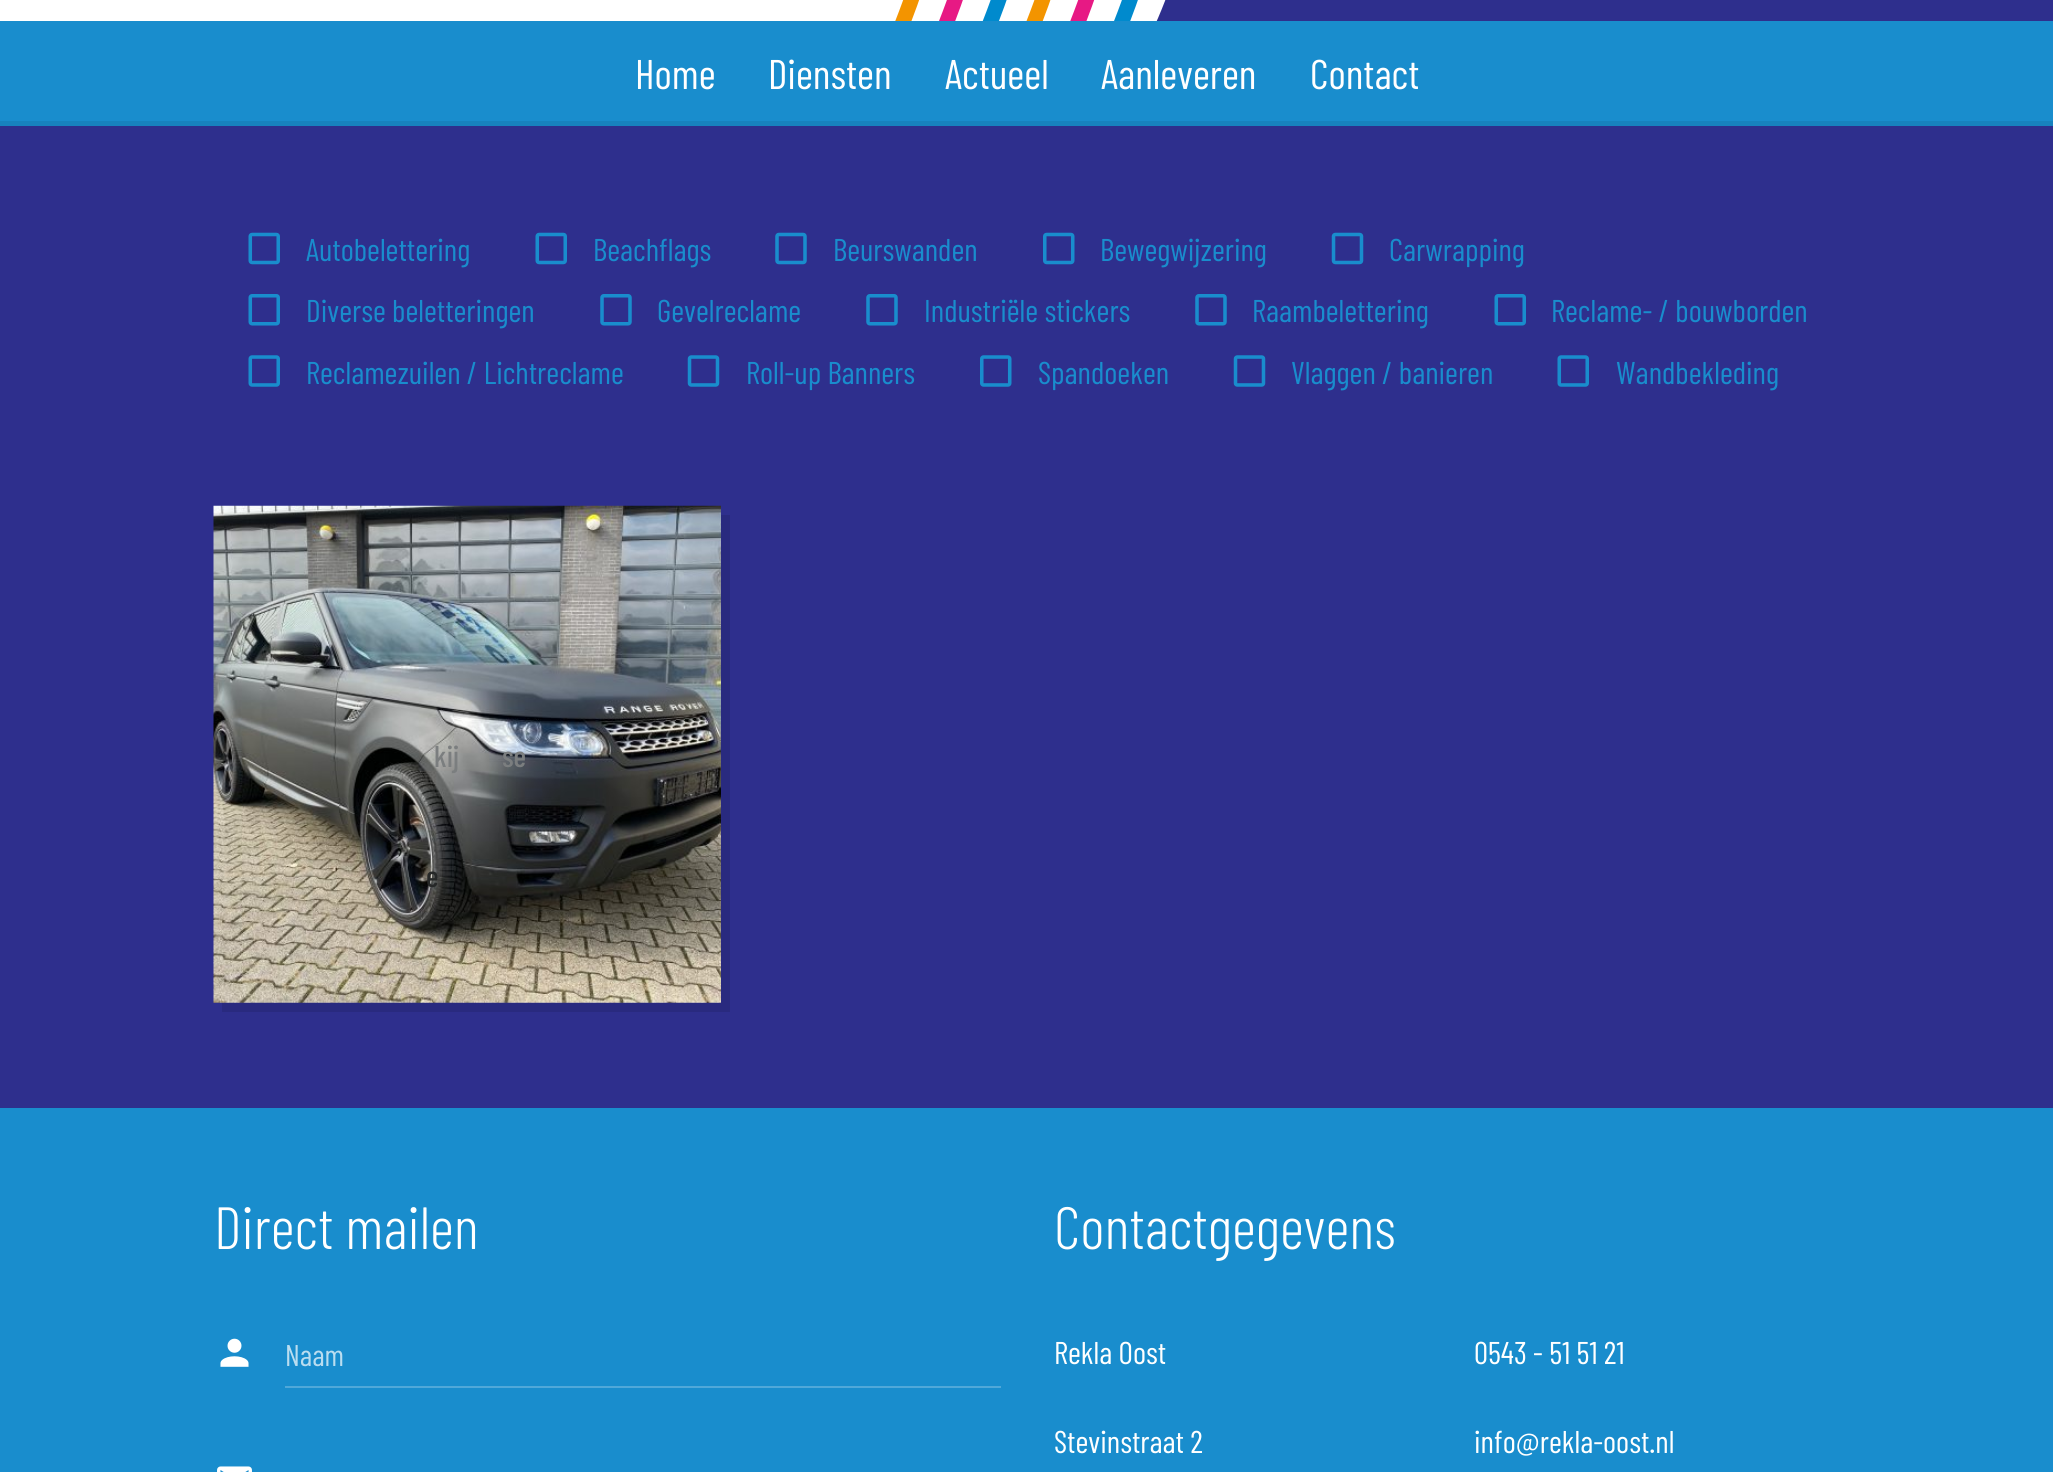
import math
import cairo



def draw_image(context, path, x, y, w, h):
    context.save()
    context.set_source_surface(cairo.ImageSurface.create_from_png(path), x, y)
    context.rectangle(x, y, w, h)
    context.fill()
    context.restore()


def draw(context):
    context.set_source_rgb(46 / 255, 47 / 255, 141 / 255)
    context.paint()
    context.set_source_rgb(1, 1, 1)
    context.new_path()
    context.move_to(-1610, -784)
    context.line_to(945, -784)
    context.curve_to(1087, -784, 1202, -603, 1202, -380)
    context.line_to(1202, -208)
    context.curve_to(1202, 15, 1087, 196, 945, 196)
    context.line_to(-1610, 196)
    context.curve_to(-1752, 196, -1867, 15, -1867, -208)
    context.line_to(-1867, -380)
    context.curve_to(-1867, -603, -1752, -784, -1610, -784)
    context.close_path()
    context.fill()
    draw_image(context, "images/1.png", 895, 0, 243, 21)
    context.set_source_rgb(25 / 255, 141 / 255, 205 / 255)
    context.rectangle(0, 21, 2053, 100)
    context.fill()
    context.set_source_rgb(23 / 255, 130 / 255, 190 / 255)
    context.rectangle(0, 121, 2053, 5)
    context.fill()
    context.set_source_rgb(46 / 255, 47 / 255, 141 / 255)
    context.rectangle(0, 126, 1090, 70)
    context.fill()
    draw_image(context, "images/2.png", 248, 232, 32, 33)
    draw_image(context, "images/2.png", 535, 232, 32, 33)
    draw_image(context, "images/3.png", 775, 232, 32, 33)
    draw_image(context, "images/4.png", 1043, 232, 32, 33)
    draw_image(context, "images/5.png", 1331, 232, 33, 33)
    draw_image(context, "images/6.png", 248, 294, 32, 32)
    draw_image(context, "images/7.png", 600, 294, 32, 32)
    draw_image(context, "images/7.png", 866, 294, 32, 32)
    draw_image(context, "images/7.png", 1195, 294, 32, 32)
    draw_image(context, "images/6.png", 1494, 294, 32, 32)
    draw_image(context, "images/8.png", 248, 355, 32, 32)
    draw_image(context, "images/9.png", 687, 355, 33, 32)
    draw_image(context, "images/10.png", 980, 355, 32, 32)
    draw_image(context, "images/9.png", 1233, 355, 33, 32)
    draw_image(context, "images/8.png", 1557, 355, 32, 32)
    context.set_source_rgb(41 / 255, 42 / 255, 127 / 255)
    context.new_path()
    context.move_to(222, 1003)
    context.line_to(222, 1012)
    context.line_to(730, 1012)
    context.line_to(730, 515)
    context.line_to(721, 515)
    context.line_to(721, 1003)
    context.close_path()
    context.fill()
    draw_image(context, "images/11.png", 213, 505, 508, 498)
    context.set_source_rgb(25 / 255, 141 / 255, 205 / 255)
    context.rectangle(0, 1108, 2053, 364)
    context.fill()
    draw_image(context, "images/12.png", 220, 1338, 29, 29)
    context.set_source_rgb(80 / 255, 168 / 255, 217 / 255)
    context.rectangle(285, 1386, 716, 2)
    context.fill()
    draw_image(context, "images/13.png", 217, 1466, 35, 6)
    context.select_font_face("Barlow Condensed")
    context.set_font_size(41.5)
    context.set_source_rgb(1, 1, 1)
    context.move_to(635, 89)
    context.show_text("Home")
    context.move_to(768, 89)
    context.show_text("Diensten")
    context.move_to(945, 89)
    context.show_text("Actueel")
    context.move_to(1101, 89)
    context.show_text("Aanleveren")
    context.move_to(1310, 89)
    context.show_text("Contact")
    context.set_font_size(31.5)
    context.set_source_rgb(25 / 255, 141 / 255, 205 / 255)
    context.move_to(306, 261)
    context.show_text("Autobelettering")
    context.move_to(593, 261)
    context.show_text("Beachflags")
    context.move_to(833, 261)
    context.show_text("Beurswanden")
    context.move_to(1100, 261)
    context.show_text("Bewegwijzering")
    context.move_to(1389, 261)
    context.show_text("Carwrapping")
    context.move_to(306, 322)
    context.show_text("Diverse beletteringen")
    context.move_to(657, 322)
    context.show_text("Gevelreclame")
    context.move_to(924, 322)
    context.show_text("Industriële stickers")
    context.move_to(1252, 322)
    context.show_text("Raambelettering")
    context.move_to(1551, 322)
    context.show_text("Reclame- / bouwborden")
    context.move_to(306, 384)
    context.show_text("Reclamezuilen / Lichtreclame")
    context.move_to(746, 384)
    context.show_text("Roll-up Banners")
    context.move_to(1038, 384)
    context.show_text("Spandoeken")
    context.move_to(1291, 384)
    context.show_text("Vlaggen / banieren")
    context.move_to(1616, 384)
    context.show_text("Wandbekleding")
    context.select_font_face("Barlow Condensed Medium")
    context.set_font_size(30)
    context.set_source_rgb(123 / 255, 126 / 255, 127 / 255)
    context.move_to(434, 767)
    context.show_text("kij")
    context.move_to(502, 767)
    context.show_text("se")
    context.set_source_rgb(38 / 255, 40 / 255, 40 / 255)
    context.move_to(426, 887)
    context.show_text("e")
    context.select_font_face("Barlow Condensed Light")
    context.set_font_size(59.5)
    context.set_source_rgb(1, 1, 1)
    context.move_to(214, 1249)
    context.show_text("Direct mailen")
    context.select_font_face("Barlow Condensed")
    context.set_font_size(30)
    context.set_source_rgb(186 / 255, 221 / 255, 240 / 255)
    context.move_to(285, 1366)
    context.show_text("Naam")
    context.select_font_face("Barlow Condensed Light")
    context.set_font_size(59.5)
    context.set_source_rgb(1, 1, 1)
    context.move_to(1054, 1249)
    context.show_text("Contactgegevens")
    context.select_font_face("Barlow Condensed")
    context.set_font_size(31.5)
    context.move_to(1054, 1364)
    context.show_text("Rekla Oost")
    context.move_to(1054, 1453)
    context.show_text("Stevinstraat 2")
    context.move_to(1474, 1364)
    context.show_text("0543 - 51 51 21")
    context.move_to(1474, 1453)
    context.show_text("info@rekla-oost.nl")


surface = cairo.ImageSurface(cairo.Format.RGB24, 2053, 1472)
context = cairo.Context(surface)
options = cairo.FontOptions()
options.set_hint_metrics(cairo.HintMetrics.OFF)
options.set_hint_style(cairo.HintStyle.NONE)
context.set_font_options(options)
context.set_miter_limit(4)
draw(context)
surface.write_to_png("out.png")
